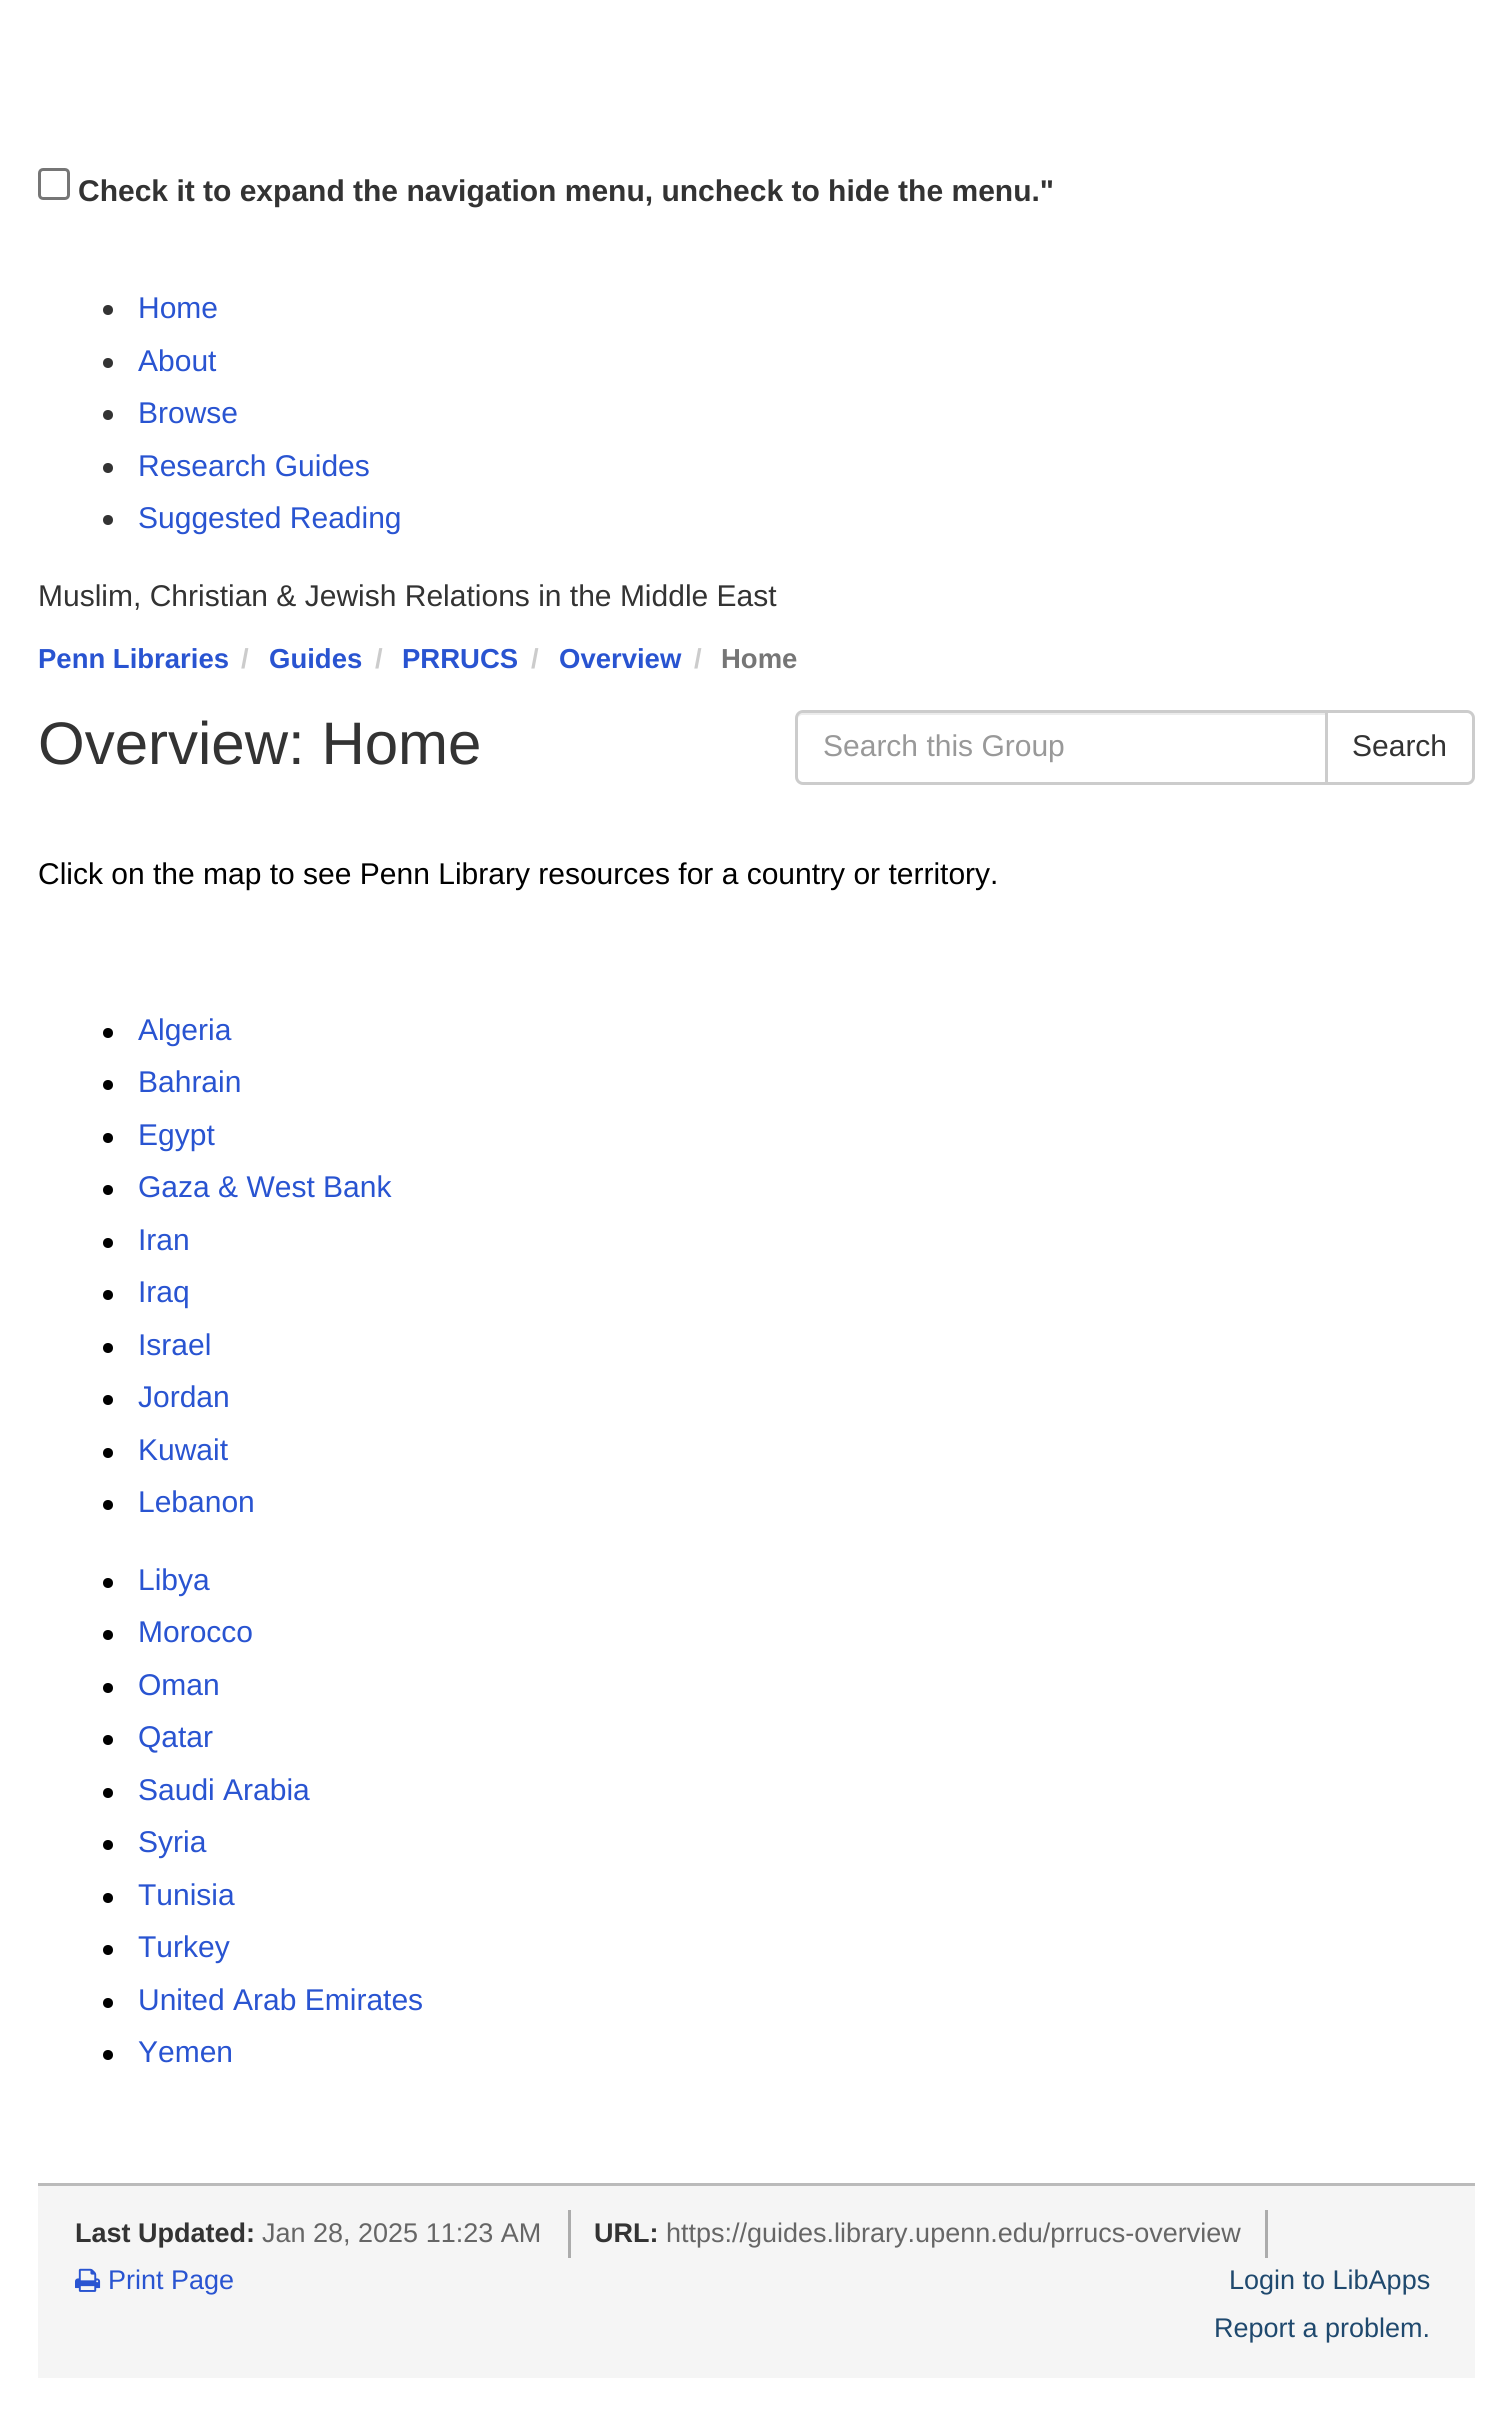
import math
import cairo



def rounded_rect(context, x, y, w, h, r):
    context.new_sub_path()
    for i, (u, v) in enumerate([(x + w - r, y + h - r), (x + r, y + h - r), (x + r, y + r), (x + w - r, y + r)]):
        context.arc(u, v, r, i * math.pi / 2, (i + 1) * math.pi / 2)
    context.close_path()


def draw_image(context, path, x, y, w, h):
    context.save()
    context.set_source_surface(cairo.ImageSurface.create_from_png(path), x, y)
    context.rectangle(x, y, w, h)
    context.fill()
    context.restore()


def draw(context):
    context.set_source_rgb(1, 1, 1)
    context.paint()
    rounded_rect(context, 39.5, 169.5, 29, 29, 3.5)
    context.set_source_rgb(118 / 255, 118 / 255, 118 / 255)
    context.set_line_width(3)
    context.stroke()
    context.set_source_rgb(51 / 255, 51 / 255, 51 / 255)
    context.arc(108, 310, 5, 0, 2 * math.pi)
    context.fill()
    context.arc(108, 363, 5, 0, 2 * math.pi)
    context.fill()
    context.arc(108, 415, 5, 0, 2 * math.pi)
    context.fill()
    context.arc(108, 468, 5, 0, 2 * math.pi)
    context.fill()
    context.arc(108, 520, 5, 0, 2 * math.pi)
    context.fill()
    context.set_source_rgb(236 / 255, 236 / 255, 236 / 255)
    context.new_path()
    context.move_to(802, 715)
    context.line_to(1325, 715)
    context.line_to(1325, 713)
    context.line_to(803, 713)
    context.curve_to(799, 713, 798, 717, 798, 720)
    context.curve_to(798, 717, 800, 715, 802, 715)
    context.close_path()
    context.fill()
    context.new_path()
    context.move_to(803, 711.5)
    context.line_to(1326.5, 711.5)
    context.line_to(1326.5, 783.5)
    context.line_to(803, 783.5)
    context.curve_to(799.5, 783.5, 796.5, 780.5, 796.5, 777)
    context.line_to(796.5, 718)
    context.curve_to(796.5, 714.5, 799.5, 711.5, 803, 711.5)
    context.close_path()
    context.set_source_rgb(204 / 255, 204 / 255, 204 / 255)
    context.stroke()
    context.set_source_rgb(1, 1, 1)
    context.new_path()
    context.move_to(1326.5, 711.5)
    context.line_to(1467, 711.5)
    context.curve_to(1470.5, 711.5, 1473.5, 714.5, 1473.5, 718)
    context.line_to(1473.5, 777)
    context.curve_to(1473.5, 780.5, 1470.5, 783.5, 1467, 783.5)
    context.line_to(1326.5, 783.5)
    context.close_path()
    context.fill_preserve()
    context.set_source_rgb(204 / 255, 204 / 255, 204 / 255)
    context.stroke()
    context.set_source_rgb(0, 0, 0)
    context.arc(108, 1033, 5, 0, 2 * math.pi)
    context.fill()
    context.arc(108, 1085, 5, 0, 2 * math.pi)
    context.fill()
    context.arc(108, 1138, 5, 0, 2 * math.pi)
    context.fill()
    context.arc(108, 1190, 5, 0, 2 * math.pi)
    context.fill()
    context.arc(108, 1243, 5, 0, 2 * math.pi)
    context.fill()
    context.arc(108, 1295, 5, 0, 2 * math.pi)
    context.fill()
    context.arc(108, 1348, 5, 0, 2 * math.pi)
    context.fill()
    context.arc(108, 1400, 5, 0, 2 * math.pi)
    context.fill()
    context.arc(108, 1453, 5, 0, 2 * math.pi)
    context.fill()
    context.arc(108, 1505, 5, 0, 2 * math.pi)
    context.fill()
    context.arc(108, 1583, 5, 0, 2 * math.pi)
    context.fill()
    context.arc(108, 1635, 5, 0, 2 * math.pi)
    context.fill()
    context.arc(108, 1688, 5, 0, 2 * math.pi)
    context.fill()
    context.arc(108, 1740, 5, 0, 2 * math.pi)
    context.fill()
    context.arc(108, 1793, 5, 0, 2 * math.pi)
    context.fill()
    context.arc(108, 1845, 5, 0, 2 * math.pi)
    context.fill()
    context.arc(108, 1898, 5, 0, 2 * math.pi)
    context.fill()
    context.arc(108, 1950, 5, 0, 2 * math.pi)
    context.fill()
    context.arc(108, 2003, 5, 0, 2 * math.pi)
    context.fill()
    context.arc(108, 2055, 5, 0, 2 * math.pi)
    context.fill()
    context.set_source_rgb(245 / 255, 245 / 255, 245 / 255)
    context.rectangle(38, 2186, 1437, 192)
    context.fill()
    context.set_source_rgb(187 / 255, 187 / 255, 187 / 255)
    context.rectangle(38, 2183, 1437, 3)
    context.fill()
    context.set_source_rgb(172 / 255, 172 / 255, 172 / 255)
    context.rectangle(568, 2210, 3, 48)
    context.fill()
    context.rectangle(1265, 2210, 3, 48)
    context.fill()
    draw_image(context, "images/1.png", 75, 2268, 26, 24)
    context.select_font_face("Liberation Sans", cairo.FontSlant.NORMAL, cairo.FontWeight.BOLD)
    context.set_font_size(30)
    context.set_source_rgb(51 / 255, 51 / 255, 51 / 255)
    context.move_to(78, 201)
    context.show_text("Check it to expand the navigation menu, uncheck to hide the menu.\"")
    context.select_font_face("Liberation Sans")
    context.set_source_rgb(41 / 255, 84 / 255, 209 / 255)
    context.move_to(138, 318)
    context.show_text("Home")
    context.move_to(138, 371)
    context.show_text("About")
    context.move_to(138, 423)
    context.show_text("Browse")
    context.move_to(138, 476)
    context.show_text("Research Guides")
    context.move_to(138, 528)
    context.show_text("Suggested Reading")
    context.set_source_rgb(51 / 255, 51 / 255, 51 / 255)
    context.move_to(38, 606)
    context.show_text("Muslim, Christian & Jewish Relations in the Middle East")
    context.select_font_face("Liberation Sans", cairo.FontSlant.NORMAL, cairo.FontWeight.BOLD)
    context.set_font_size(27.5)
    context.set_source_rgb(41 / 255, 84 / 255, 209 / 255)
    context.move_to(38, 668)
    context.show_text("Penn Libraries")
    context.set_source_rgb(204 / 255, 204 / 255, 204 / 255)
    context.move_to(241, 668)
    context.show_text("/")
    context.set_source_rgb(41 / 255, 84 / 255, 209 / 255)
    context.move_to(269, 668)
    context.show_text("Guides")
    context.set_source_rgb(204 / 255, 204 / 255, 204 / 255)
    context.move_to(375, 668)
    context.show_text("/")
    context.set_source_rgb(41 / 255, 84 / 255, 209 / 255)
    context.move_to(402, 668)
    context.show_text("PRRUCS")
    context.set_source_rgb(204 / 255, 204 / 255, 204 / 255)
    context.move_to(531, 668)
    context.show_text("/")
    context.set_source_rgb(41 / 255, 84 / 255, 209 / 255)
    context.move_to(559, 668)
    context.show_text("Overview")
    context.set_source_rgb(204 / 255, 204 / 255, 204 / 255)
    context.move_to(694, 668)
    context.show_text("/")
    context.set_source_rgb(118 / 255, 118 / 255, 118 / 255)
    context.move_to(721, 668)
    context.show_text("Home")
    context.select_font_face("Liberation Sans")
    context.set_font_size(60)
    context.set_source_rgb(51 / 255, 51 / 255, 51 / 255)
    context.move_to(38, 764)
    context.show_text("Overview: Home")
    context.set_font_size(30)
    context.set_source_rgb(153 / 255, 153 / 255, 153 / 255)
    context.move_to(823, 756)
    context.show_text("Search this Group")
    context.set_source_rgb(51 / 255, 51 / 255, 51 / 255)
    context.move_to(1352, 756)
    context.show_text("Search")
    context.set_source_rgb(0, 0, 0)
    context.move_to(38, 884)
    context.show_text("Click on the map to see Penn Library resources for a country or territory.")
    context.set_source_rgb(41 / 255, 84 / 255, 209 / 255)
    context.move_to(138, 1040)
    context.show_text("Algeria")
    context.move_to(138, 1092)
    context.show_text("Bahrain")
    context.move_to(138, 1145)
    context.show_text("Egypt")
    context.move_to(138, 1197)
    context.show_text("Gaza & West Bank")
    context.move_to(138, 1250)
    context.show_text("Iran")
    context.move_to(138, 1302)
    context.show_text("Iraq")
    context.move_to(138, 1355)
    context.show_text("Israel")
    context.move_to(138, 1407)
    context.show_text("Jordan")
    context.move_to(138, 1460)
    context.show_text("Kuwait")
    context.move_to(138, 1512)
    context.show_text("Lebanon")
    context.move_to(138, 1590)
    context.show_text("Libya")
    context.move_to(138, 1642)
    context.show_text("Morocco")
    context.move_to(138, 1695)
    context.show_text("Oman")
    context.move_to(138, 1747)
    context.show_text("Qatar")
    context.move_to(138, 1800)
    context.show_text("Saudi Arabia")
    context.move_to(138, 1852)
    context.show_text("Syria")
    context.move_to(138, 1905)
    context.show_text("Tunisia")
    context.move_to(138, 1957)
    context.show_text("Turkey")
    context.move_to(138, 2010)
    context.show_text("United Arab Emirates")
    context.move_to(138, 2062)
    context.show_text("Yemen")
    context.select_font_face("Liberation Sans", cairo.FontSlant.NORMAL, cairo.FontWeight.BOLD)
    context.set_font_size(27)
    context.set_source_rgb(51 / 255, 51 / 255, 51 / 255)
    context.move_to(75, 2242)
    context.show_text("Last Updated:")
    context.select_font_face("Liberation Sans")
    context.set_source_rgb(102 / 255, 102 / 255, 102 / 255)
    context.move_to(262, 2242)
    context.show_text("Jan 28, 2025 11:23 AM")
    context.select_font_face("Liberation Sans", cairo.FontSlant.NORMAL, cairo.FontWeight.BOLD)
    context.set_source_rgb(51 / 255, 51 / 255, 51 / 255)
    context.move_to(594, 2242)
    context.show_text("URL:")
    context.select_font_face("Liberation Sans")
    context.set_source_rgb(102 / 255, 102 / 255, 102 / 255)
    context.move_to(666, 2242)
    context.show_text("https://guides.library.upenn.edu/prrucs-overview")
    context.set_source_rgb(41 / 255, 84 / 255, 209 / 255)
    context.move_to(108, 2289)
    context.show_text("Print Page")
    context.set_source_rgb(31 / 255, 73 / 255, 110 / 255)
    context.move_to(1229, 2289)
    context.show_text("Login to LibApps")
    context.move_to(1214, 2337)
    context.show_text("Report a problem.")


surface = cairo.ImageSurface(cairo.Format.RGB24, 1511, 2418)
context = cairo.Context(surface)
options = cairo.FontOptions()
options.set_hint_metrics(cairo.HintMetrics.OFF)
options.set_hint_style(cairo.HintStyle.NONE)
context.set_font_options(options)
context.set_miter_limit(4)
draw(context)
surface.write_to_png("out.png")
